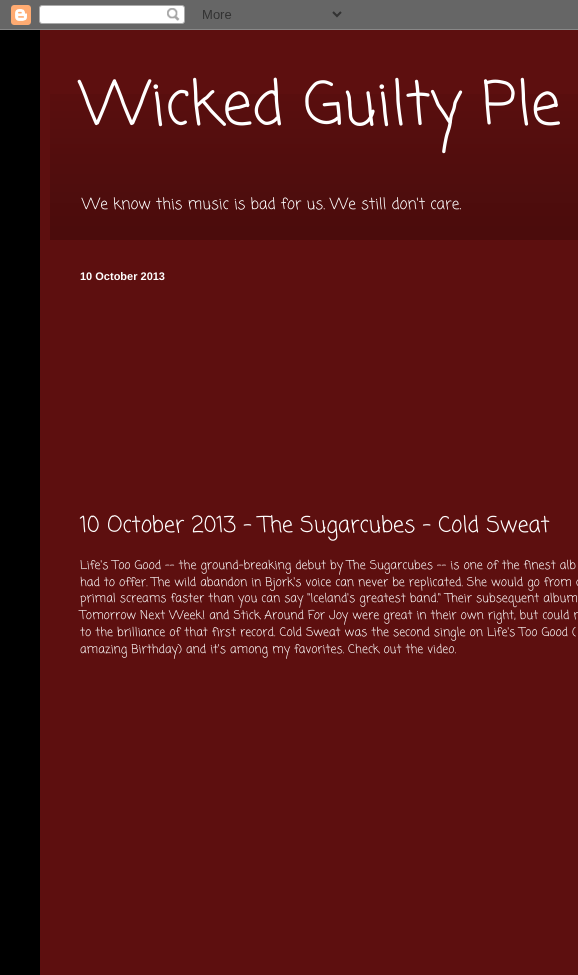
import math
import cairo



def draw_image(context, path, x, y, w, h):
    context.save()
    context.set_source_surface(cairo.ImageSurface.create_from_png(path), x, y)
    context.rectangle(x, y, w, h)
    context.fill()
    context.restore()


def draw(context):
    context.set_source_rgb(0, 0, 0)
    context.paint()
    draw_image(context, "images/1.png", 0, 0, 578, 30)
    context.set_source_rgb(93 / 255, 15 / 255, 15 / 255)
    context.rectangle(40, 30, 538, 945)
    context.fill()
    draw_image(context, "images/2.png", 50, 94, 528, 146)
    context.select_font_face("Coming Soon")
    context.set_font_size(60)
    context.set_source_rgb(1, 1, 1)
    context.move_to(80, 124)
    context.show_text("Wicked Guilty Ple")
    context.set_font_size(15.4)
    context.move_to(82, 209)
    context.show_text("We know this music is bad for us. We still don't care.")
    context.select_font_face("Liberation Sans", cairo.FontSlant.NORMAL, cairo.FontWeight.BOLD)
    context.set_font_size(11)
    context.move_to(80, 280)
    context.show_text("10 October 2013")
    context.select_font_face("Coming Soon")
    context.set_font_size(22)
    context.move_to(80, 532)
    context.show_text("10 October 2013 - The Sugarcubes - Cold Sweat")
    context.set_font_size(12.1)
    context.move_to(80, 569)
    context.show_text("Life's Too Good -- the ground-breaking debut by The Sugarcubes -- is one of the finest alb")
    context.move_to(80, 586)
    context.show_text("had to offer. The wild abandon in Bjork's voice can never be replicated. She would go from c")
    context.move_to(80, 602)
    context.show_text("primal screams faster than you can say \"Iceland's greatest band.\" Their subsequent album")
    context.move_to(80, 619)
    context.show_text("Tomorrow Next Week! and Stick Around For Joy were great in their own right, but could n")
    context.move_to(80, 636)
    context.show_text("to the brilliance of that first record. Cold Sweat was the second single on Life's Too Good (")
    context.move_to(80, 653)
    context.show_text("amazing Birthday) and it's among my favorites. Check out the video.")


surface = cairo.ImageSurface(cairo.Format.RGB24, 578, 975)
context = cairo.Context(surface)
options = cairo.FontOptions()
options.set_hint_metrics(cairo.HintMetrics.OFF)
options.set_hint_style(cairo.HintStyle.NONE)
context.set_font_options(options)
context.set_miter_limit(4)
draw(context)
surface.write_to_png("out.png")
